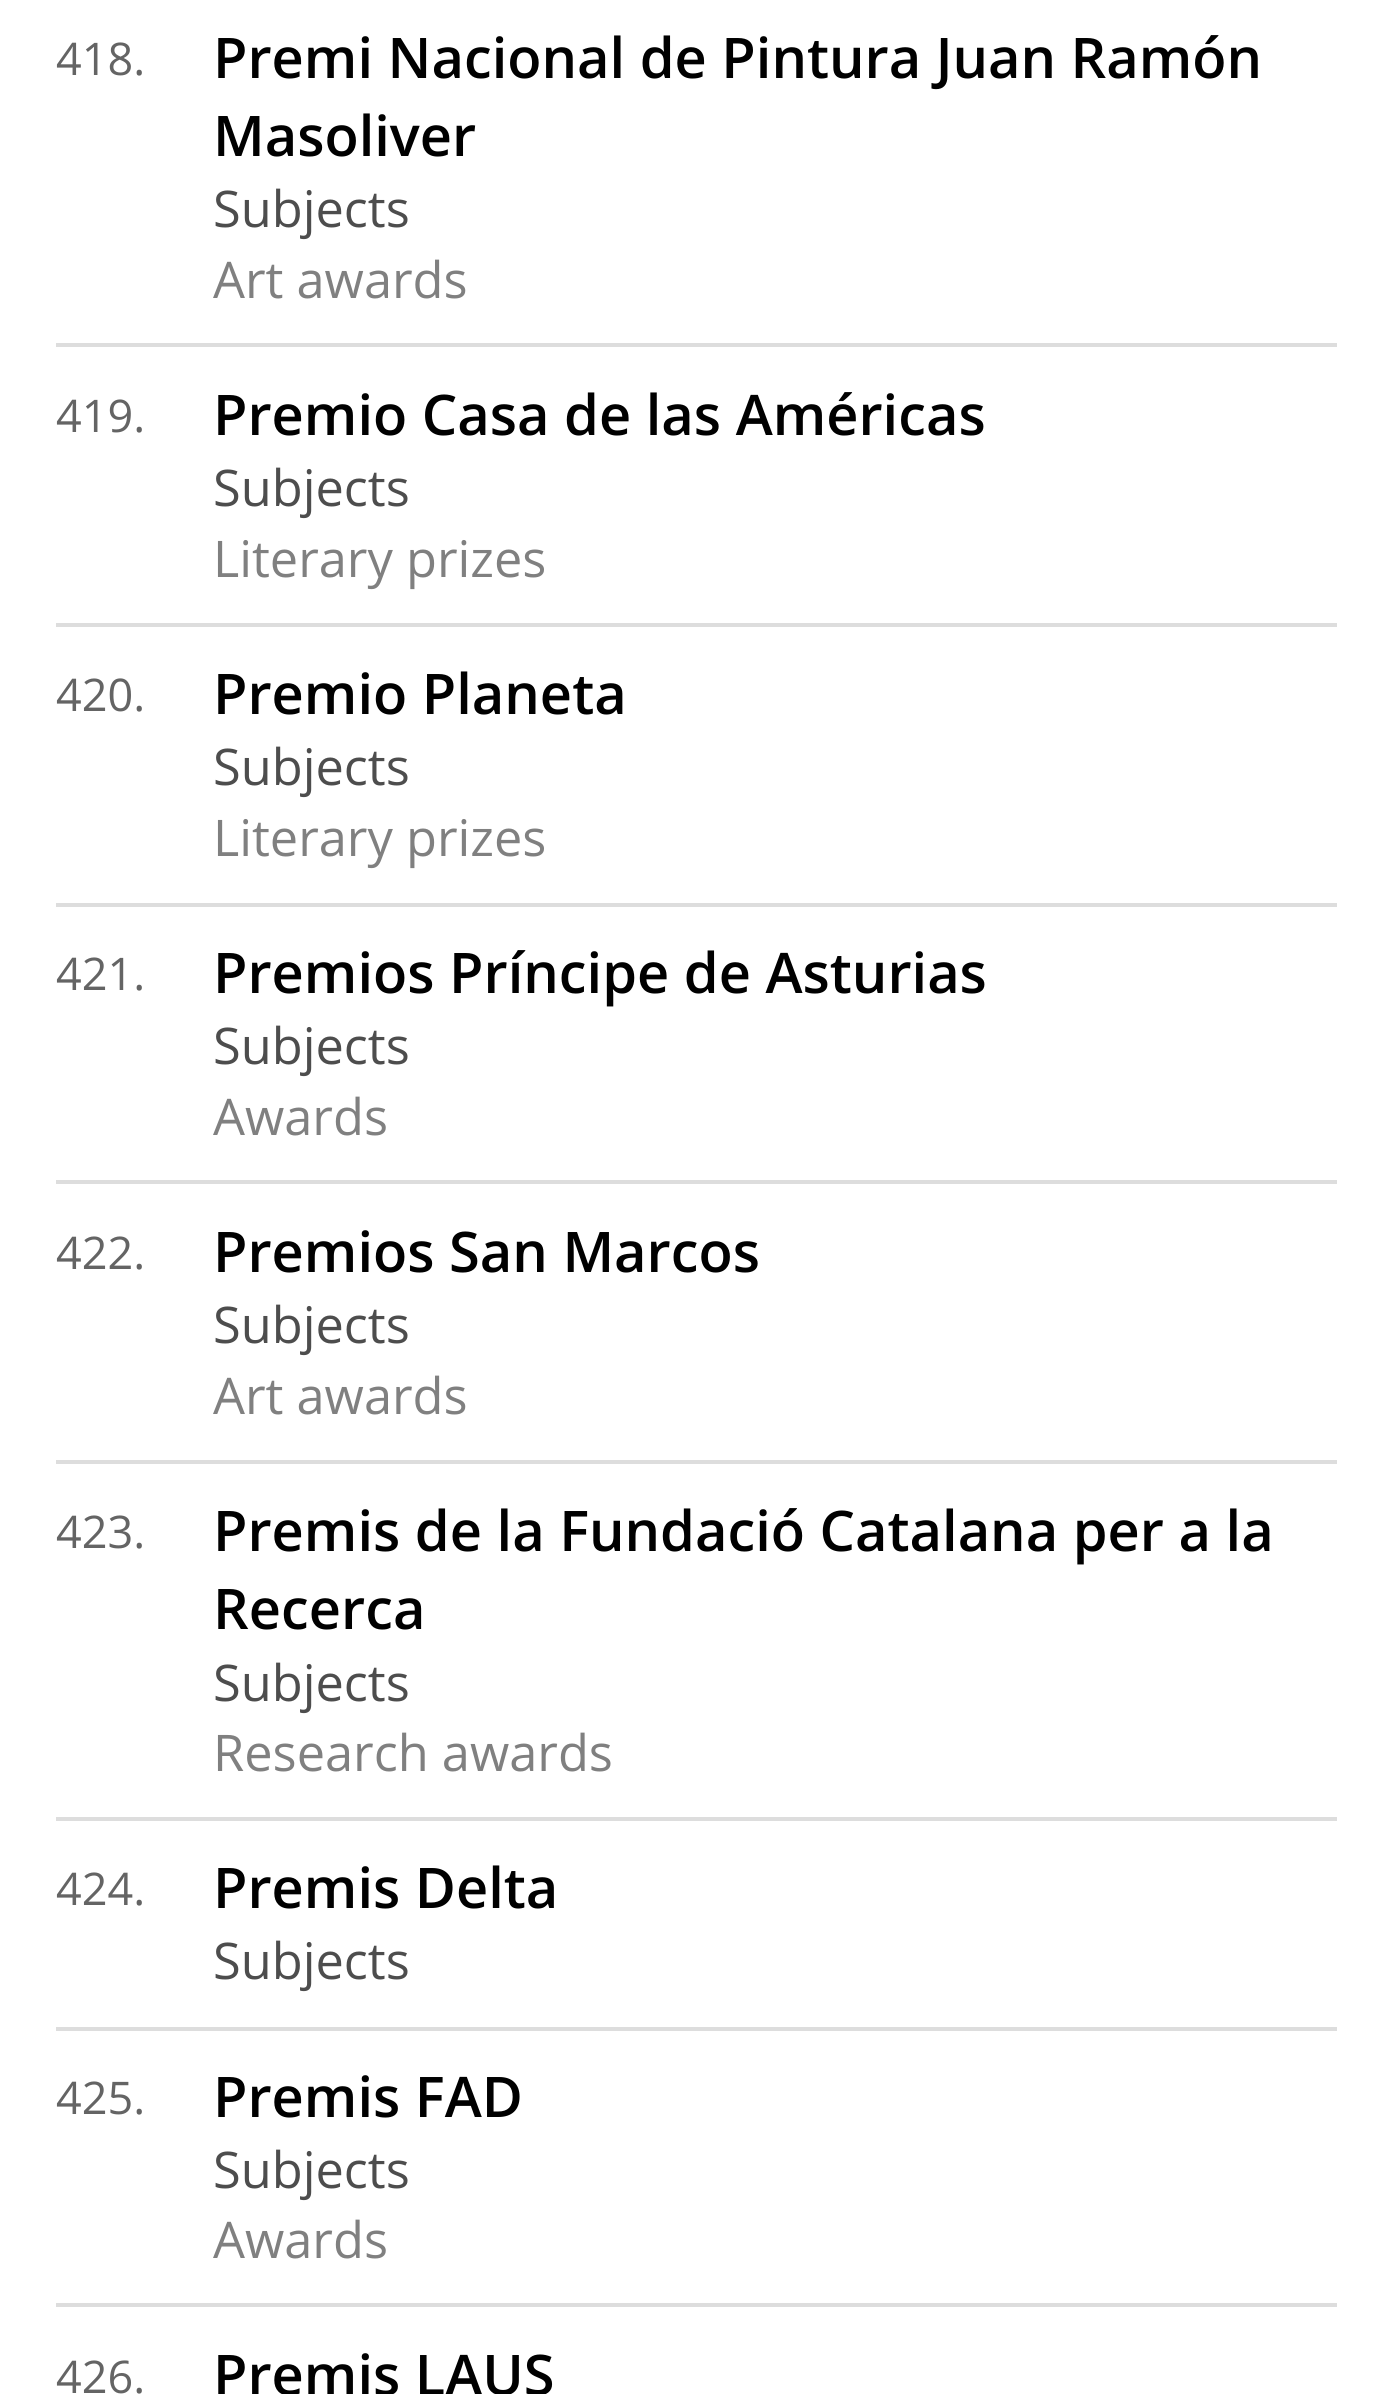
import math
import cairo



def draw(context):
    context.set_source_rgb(1, 1, 1)
    context.paint()
    context.set_source_rgb(221 / 255, 221 / 255, 221 / 255)
    context.rectangle(56, 343, 1281, 4)
    context.fill()
    context.rectangle(56, 623, 1281, 4)
    context.fill()
    context.rectangle(56, 903, 1281, 4)
    context.fill()
    context.rectangle(56, 1180, 1281, 4)
    context.fill()
    context.rectangle(56, 1460, 1281, 4)
    context.fill()
    context.rectangle(56, 1817, 1281, 4)
    context.fill()
    context.rectangle(56, 2027, 1281, 4)
    context.fill()
    context.rectangle(56, 2303, 1281, 4)
    context.fill()
    context.select_font_face("Open Sans")
    context.set_font_size(45)
    context.set_source_rgb(100 / 255, 100 / 255, 100 / 255)
    context.move_to(56, 75)
    context.show_text("418.")
    context.select_font_face("Open Sans SemiBold")
    context.set_font_size(56)
    context.set_source_rgb(0, 0, 0)
    context.move_to(213, 78)
    context.show_text("Premi Nacional de Pintura Juan Ramón")
    context.move_to(213, 156)
    context.show_text("Masoliver")
    context.select_font_face("Open Sans")
    context.set_font_size(50.5)
    context.set_source_rgb(77 / 255, 77 / 255, 77 / 255)
    context.move_to(213, 227)
    context.show_text("Subjects")
    context.set_source_rgb(128 / 255, 128 / 255, 128 / 255)
    context.move_to(213, 298)
    context.show_text("Art awards")
    context.set_font_size(45)
    context.set_source_rgb(100 / 255, 100 / 255, 100 / 255)
    context.move_to(56, 432)
    context.show_text("419.")
    context.select_font_face("Open Sans SemiBold")
    context.set_font_size(56)
    context.set_source_rgb(0, 0, 0)
    context.move_to(213, 435)
    context.show_text("Premio Casa de las Américas")
    context.select_font_face("Open Sans")
    context.set_font_size(50.5)
    context.set_source_rgb(77 / 255, 77 / 255, 77 / 255)
    context.move_to(213, 506)
    context.show_text("Subjects")
    context.set_source_rgb(128 / 255, 128 / 255, 128 / 255)
    context.move_to(213, 577)
    context.show_text("Literary prizes")
    context.set_font_size(45)
    context.set_source_rgb(100 / 255, 100 / 255, 100 / 255)
    context.move_to(56, 711)
    context.show_text("420.")
    context.select_font_face("Open Sans SemiBold")
    context.set_font_size(56)
    context.set_source_rgb(0, 0, 0)
    context.move_to(213, 714)
    context.show_text("Premio Planeta")
    context.select_font_face("Open Sans")
    context.set_font_size(50.5)
    context.set_source_rgb(77 / 255, 77 / 255, 77 / 255)
    context.move_to(213, 785)
    context.show_text("Subjects")
    context.set_source_rgb(128 / 255, 128 / 255, 128 / 255)
    context.move_to(213, 856)
    context.show_text("Literary prizes")
    context.set_font_size(45)
    context.set_source_rgb(100 / 255, 100 / 255, 100 / 255)
    context.move_to(56, 990)
    context.show_text("421.")
    context.select_font_face("Open Sans SemiBold")
    context.set_font_size(56)
    context.set_source_rgb(0, 0, 0)
    context.move_to(213, 993)
    context.show_text("Premios Príncipe de Asturias")
    context.select_font_face("Open Sans")
    context.set_font_size(50.5)
    context.set_source_rgb(77 / 255, 77 / 255, 77 / 255)
    context.move_to(213, 1064)
    context.show_text("Subjects")
    context.set_source_rgb(128 / 255, 128 / 255, 128 / 255)
    context.move_to(213, 1135)
    context.show_text("Awards")
    context.set_font_size(45)
    context.set_source_rgb(100 / 255, 100 / 255, 100 / 255)
    context.move_to(56, 1269)
    context.show_text("422.")
    context.select_font_face("Open Sans SemiBold")
    context.set_font_size(56)
    context.set_source_rgb(0, 0, 0)
    context.move_to(213, 1272)
    context.show_text("Premios San Marcos")
    context.select_font_face("Open Sans")
    context.set_font_size(50.5)
    context.set_source_rgb(77 / 255, 77 / 255, 77 / 255)
    context.move_to(213, 1343)
    context.show_text("Subjects")
    context.set_source_rgb(128 / 255, 128 / 255, 128 / 255)
    context.move_to(213, 1414)
    context.show_text("Art awards")
    context.set_font_size(45)
    context.set_source_rgb(100 / 255, 100 / 255, 100 / 255)
    context.move_to(56, 1548)
    context.show_text("423.")
    context.select_font_face("Open Sans SemiBold")
    context.set_font_size(56)
    context.set_source_rgb(0, 0, 0)
    context.move_to(213, 1551)
    context.show_text("Premis de la Fundació Catalana per a la")
    context.move_to(213, 1629)
    context.show_text("Recerca")
    context.select_font_face("Open Sans")
    context.set_font_size(50.5)
    context.set_source_rgb(77 / 255, 77 / 255, 77 / 255)
    context.move_to(213, 1701)
    context.show_text("Subjects")
    context.set_source_rgb(128 / 255, 128 / 255, 128 / 255)
    context.move_to(213, 1771)
    context.show_text("Research awards")
    context.set_font_size(45)
    context.set_source_rgb(100 / 255, 100 / 255, 100 / 255)
    context.move_to(56, 1905)
    context.show_text("424.")
    context.select_font_face("Open Sans SemiBold")
    context.set_font_size(56)
    context.set_source_rgb(0, 0, 0)
    context.move_to(213, 1908)
    context.show_text("Premis Delta")
    context.select_font_face("Open Sans")
    context.set_font_size(50.5)
    context.set_source_rgb(77 / 255, 77 / 255, 77 / 255)
    context.move_to(213, 1979)
    context.show_text("Subjects")
    context.set_font_size(45)
    context.set_source_rgb(100 / 255, 100 / 255, 100 / 255)
    context.move_to(56, 2114)
    context.show_text("425.")
    context.select_font_face("Open Sans SemiBold")
    context.set_font_size(56)
    context.set_source_rgb(0, 0, 0)
    context.move_to(213, 2117)
    context.show_text("Premis FAD")
    context.select_font_face("Open Sans")
    context.set_font_size(50.5)
    context.set_source_rgb(77 / 255, 77 / 255, 77 / 255)
    context.move_to(213, 2188)
    context.show_text("Subjects")
    context.set_source_rgb(128 / 255, 128 / 255, 128 / 255)
    context.move_to(213, 2258)
    context.show_text("Awards")
    context.set_font_size(45)
    context.set_source_rgb(100 / 255, 100 / 255, 100 / 255)
    context.move_to(56, 2393)
    context.show_text("426.")
    context.select_font_face("Open Sans SemiBold")
    context.set_font_size(56)
    context.set_source_rgb(0, 0, 0)
    context.move_to(213, 2395)
    context.show_text("Premis LAUS")


surface = cairo.ImageSurface(cairo.Format.RGB24, 1390, 2394)
context = cairo.Context(surface)
options = cairo.FontOptions()
options.set_hint_metrics(cairo.HintMetrics.OFF)
options.set_hint_style(cairo.HintStyle.NONE)
context.set_font_options(options)
context.set_miter_limit(4)
draw(context)
surface.write_to_png("out.png")
